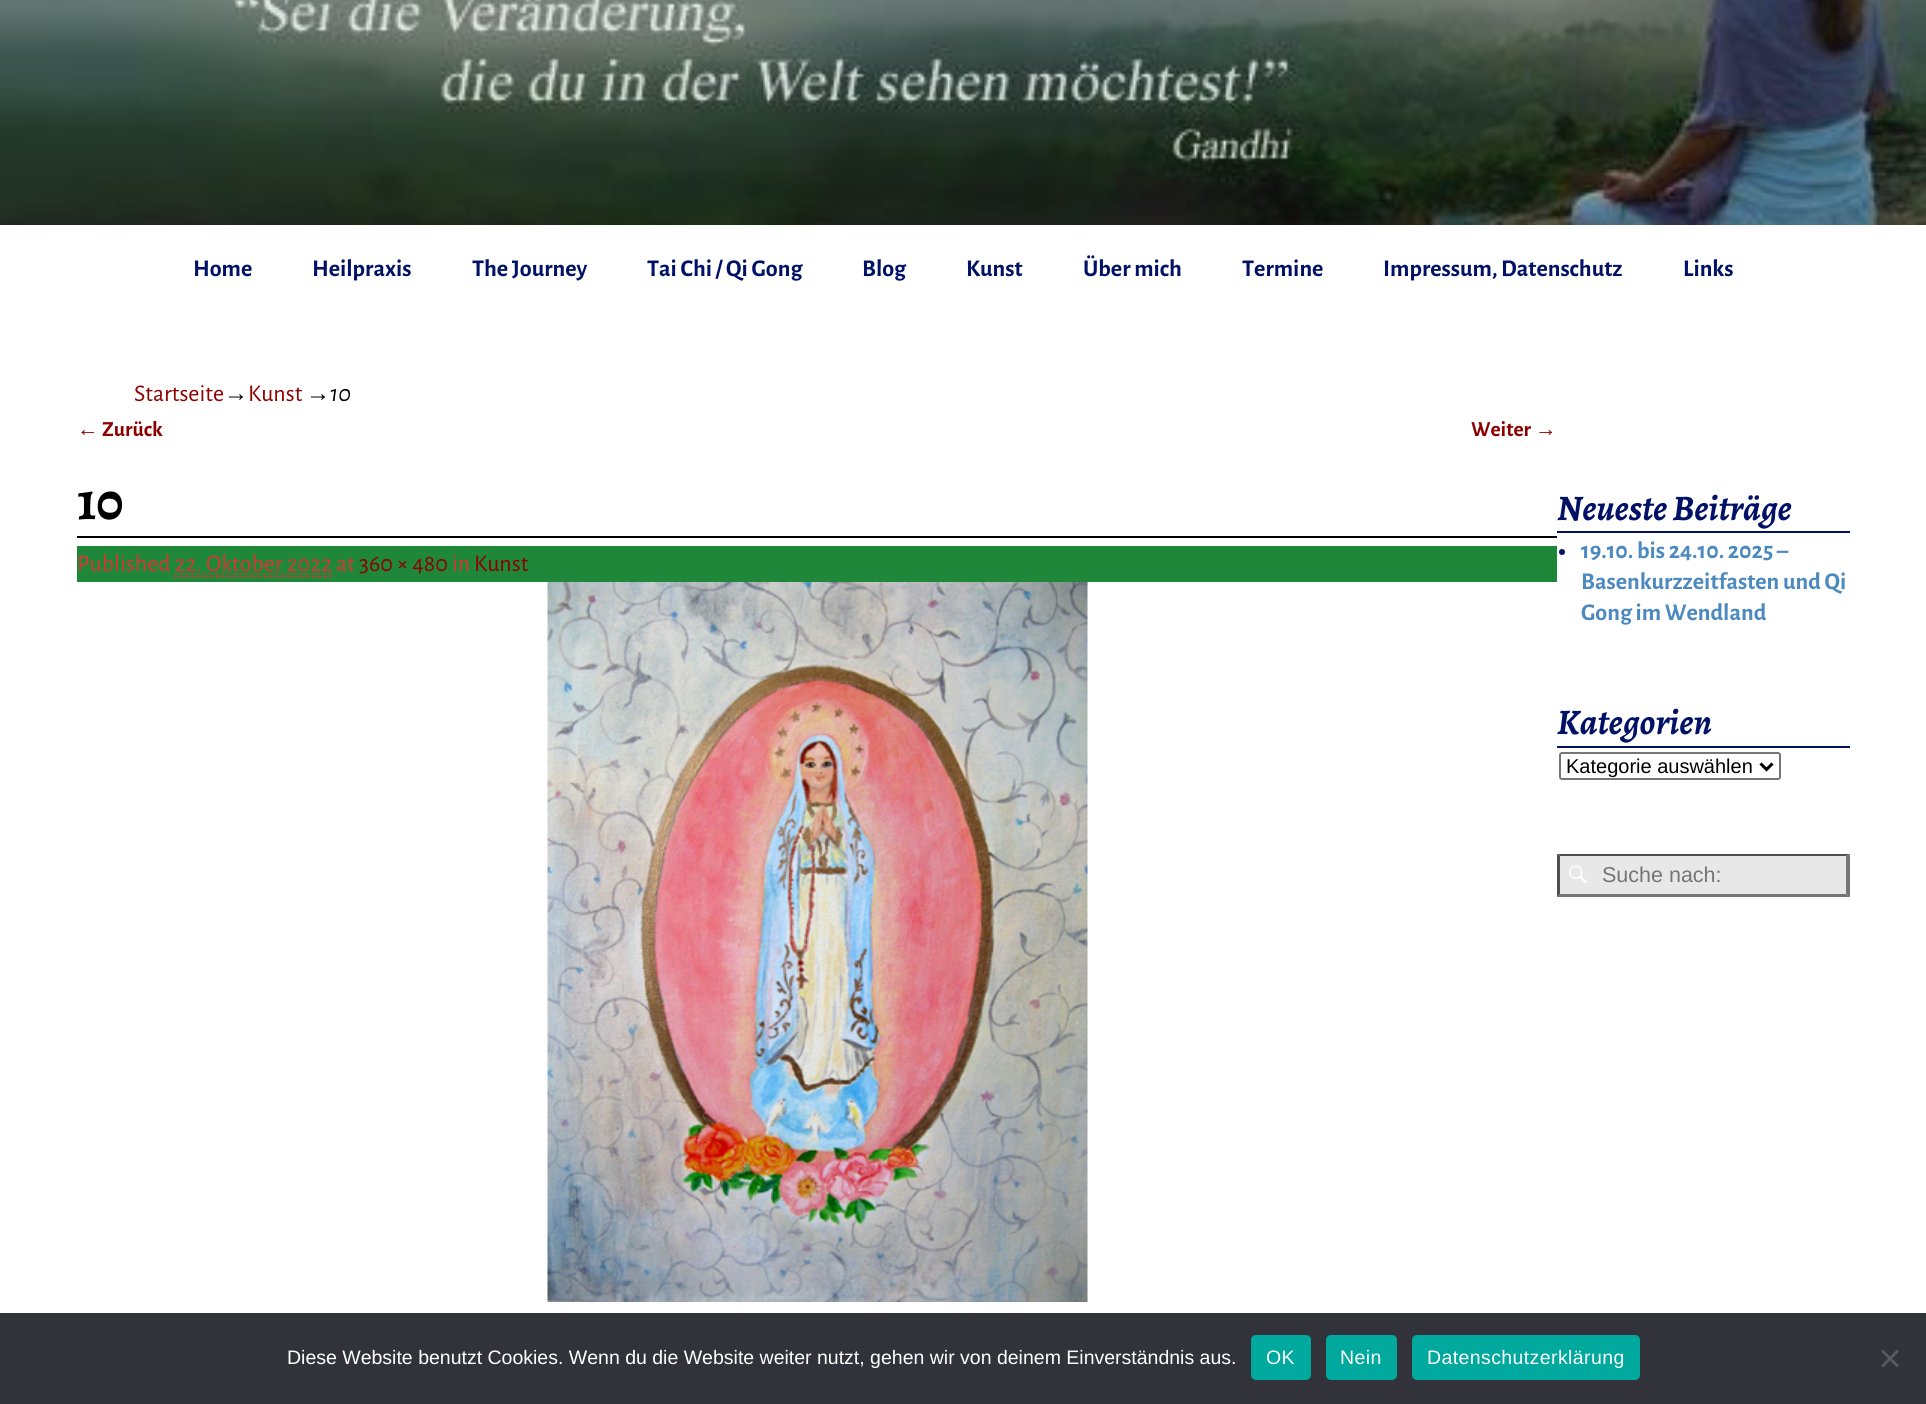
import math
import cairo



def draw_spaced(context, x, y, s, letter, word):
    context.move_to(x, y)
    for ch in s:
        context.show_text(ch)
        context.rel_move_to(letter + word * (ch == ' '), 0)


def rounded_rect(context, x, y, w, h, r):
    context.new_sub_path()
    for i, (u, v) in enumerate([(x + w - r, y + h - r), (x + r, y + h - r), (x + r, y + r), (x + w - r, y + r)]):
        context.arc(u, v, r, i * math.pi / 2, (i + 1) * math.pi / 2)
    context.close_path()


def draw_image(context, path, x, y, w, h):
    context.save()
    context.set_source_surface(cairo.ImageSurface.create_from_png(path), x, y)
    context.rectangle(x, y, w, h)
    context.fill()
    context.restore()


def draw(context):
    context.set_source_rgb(1, 1, 1)
    context.paint()
    draw_image(context, "images/1.png", 0, 0, 1926, 225)
    context.set_source_rgb(0, 0, 0)
    context.rectangle(77, 536, 1480, 2)
    context.fill()
    context.set_source_rgb(31 / 255, 135 / 255, 57 / 255)
    context.rectangle(77, 546, 1480, 36)
    context.fill()
    context.new_path()
    context.move_to(174.5, 574)
    context.line_to(332, 574)
    context.set_source_rgb(221 / 255, 51 / 255, 51 / 255)
    context.set_line_width(1.5)
    context.set_dash([1.5, 1.5])
    context.stroke()
    context.new_path()
    context.move_to(174, 577)
    context.line_to(331.5, 577)
    context.stroke()
    draw_image(context, "images/2.png", 547, 582, 541, 720)
    context.set_source_rgb(0, 17 / 255, 102 / 255)
    context.rectangle(1557, 531, 293, 2)
    context.fill()
    context.arc(1562, 552, 3, 0, 2 * math.pi)
    context.fill()
    context.rectangle(1557, 746, 293, 2)
    context.fill()
    rounded_rect(context, 1560, 753, 220, 26, 2)
    context.set_source_rgb(118 / 255, 118 / 255, 118 / 255)
    context.set_line_width(2)
    context.set_dash([])
    context.stroke()
    context.new_path()
    context.move_to(1760.5, 763.5)
    context.line_to(1766.5, 769.5)
    context.line_to(1772.5, 763.5)
    context.set_source_rgb(0, 0, 0)
    context.set_line_width(3)
    context.stroke()
    context.set_source_rgb(232 / 255, 232 / 255, 232 / 255)
    context.rectangle(1557, 854, 293, 43)
    context.fill()
    draw_image(context, "images/3.png", 1569, 865, 18, 19)
    context.set_source_rgb(79 / 255, 79 / 255, 79 / 255)
    context.new_path()
    context.move_to(1557, 854)
    context.line_to(1850, 854)
    context.line_to(1846, 856)
    context.line_to(1560, 856)
    context.close_path()
    context.fill()
    context.set_source_rgb(118 / 255, 118 / 255, 118 / 255)
    context.new_path()
    context.move_to(1850, 854)
    context.line_to(1850, 897)
    context.line_to(1846, 894)
    context.line_to(1846, 856)
    context.close_path()
    context.fill()
    context.new_path()
    context.move_to(1850, 897)
    context.line_to(1557, 897)
    context.line_to(1560, 894)
    context.line_to(1846, 894)
    context.close_path()
    context.fill()
    context.set_source_rgb(79 / 255, 79 / 255, 79 / 255)
    context.new_path()
    context.move_to(1557, 897)
    context.line_to(1557, 854)
    context.line_to(1560, 856)
    context.line_to(1560, 894)
    context.close_path()
    context.fill()
    context.set_source_rgb(50 / 255, 50 / 255, 58 / 255)
    context.rectangle(0, 1313, 1926, 91)
    context.fill()
    context.set_source_rgb(0, 169 / 255, 157 / 255)
    rounded_rect(context, 1251, 1335, 60, 45, 5)
    context.fill()
    rounded_rect(context, 1326, 1335, 71, 45, 5)
    context.fill()
    rounded_rect(context, 1412, 1335, 228, 45, 5)
    context.fill()
    context.set_source_rgb(89 / 255, 89 / 255, 93 / 255)
    context.new_path()
    context.move_to(1897, 1349.5)
    context.line_to(1899, 1351.5)
    context.line_to(1883, 1367.5)
    context.line_to(1881, 1365.5)
    context.close_path()
    context.fill()
    context.new_path()
    context.move_to(1881, 1351.5)
    context.line_to(1883, 1349.5)
    context.line_to(1899, 1365.5)
    context.line_to(1897, 1367.5)
    context.close_path()
    context.fill()
    context.select_font_face("Alegreya Sans", cairo.FontSlant.NORMAL, cairo.FontWeight.BOLD)
    context.set_font_size(24)
    context.set_source_rgb(0, 17 / 255, 102 / 255)
    context.move_to(193, 276)
    context.show_text("Home")
    context.move_to(312, 276)
    context.show_text("Heilpraxis")
    context.move_to(472, 276)
    context.show_text("The Journey")
    context.move_to(647, 276)
    context.show_text("Tai Chi / Qi Gong")
    context.move_to(862, 276)
    context.show_text("Blog")
    context.move_to(966, 276)
    context.show_text("Kunst")
    context.move_to(1083, 276)
    context.show_text("Über mich")
    context.move_to(1242, 276)
    context.show_text("Termine")
    context.move_to(1383, 276)
    context.show_text("Impressum, Datenschutz")
    context.move_to(1683, 276)
    context.show_text("Links")
    context.select_font_face("Alegreya Sans")
    context.set_source_rgb(142 / 255, 0, 0)
    context.move_to(134, 401)
    context.show_text("Startseite")
    context.select_font_face("Liberation Sans")
    context.set_source_rgb(0, 0, 0)
    context.move_to(224, 401)
    context.show_text("→")
    context.select_font_face("Alegreya Sans")
    context.set_source_rgb(142 / 255, 0, 0)
    context.move_to(248, 401)
    context.show_text("Kunst")
    context.select_font_face("Liberation Sans")
    context.set_source_rgb(0, 0, 0)
    context.move_to(306, 401)
    context.show_text("→")
    context.select_font_face("Alegreya Sans", cairo.FontSlant.ITALIC)
    context.move_to(330, 401)
    context.show_text("10")
    context.select_font_face("Liberation Sans", cairo.FontSlant.NORMAL, cairo.FontWeight.BOLD)
    context.set_font_size(21.5)
    context.set_source_rgb(142 / 255, 0, 0)
    context.move_to(77, 436)
    context.show_text("←")
    context.select_font_face("Alegreya Sans", cairo.FontSlant.NORMAL, cairo.FontWeight.BOLD)
    context.move_to(102, 436)
    context.show_text("Zurück")
    context.move_to(1471, 436)
    context.show_text("Weiter")
    context.select_font_face("Liberation Sans", cairo.FontSlant.NORMAL, cairo.FontWeight.BOLD)
    context.move_to(1535, 436)
    context.show_text("→")
    context.select_font_face("Alegreya", cairo.FontSlant.NORMAL, cairo.FontWeight.BOLD)
    context.set_font_size(54)
    context.set_source_rgb(0, 0, 0)
    context.move_to(77, 519)
    context.show_text("10")
    context.select_font_face("Alegreya Sans")
    context.set_font_size(24)
    context.set_source_rgb(221 / 255, 51 / 255, 51 / 255)
    context.move_to(77, 571)
    context.show_text("Published 22. Oktober 2022 at")
    context.set_source_rgb(142 / 255, 0, 0)
    context.move_to(359, 571)
    context.show_text("360 × 480")
    context.set_source_rgb(221 / 255, 51 / 255, 51 / 255)
    context.move_to(452, 571)
    context.show_text("in")
    context.set_source_rgb(142 / 255, 0, 0)
    context.move_to(474, 571)
    context.show_text("Kunst")
    context.select_font_face("Alegreya", cairo.FontSlant.ITALIC, cairo.FontWeight.BOLD)
    context.set_font_size(36)
    context.set_source_rgb(0, 17 / 255, 102 / 255)
    context.move_to(1557, 520)
    context.show_text("Neueste Beiträge")
    context.select_font_face("Alegreya Sans", cairo.FontSlant.NORMAL, cairo.FontWeight.BOLD)
    context.set_font_size(24)
    context.set_source_rgb(76 / 255, 137 / 255, 191 / 255)
    context.move_to(1581, 558)
    context.show_text("19.10. bis 24.10. 2025 –")
    context.move_to(1581, 589)
    context.show_text("Basenkurzzeitfasten und Qi")
    context.move_to(1581, 620)
    context.show_text("Gong im Wendland")
    context.select_font_face("Alegreya", cairo.FontSlant.ITALIC, cairo.FontWeight.BOLD)
    context.set_font_size(36)
    context.set_source_rgb(0, 17 / 255, 102 / 255)
    context.move_to(1557, 734)
    context.show_text("Kategorien")
    context.select_font_face("Liberation Sans")
    context.set_font_size(20)
    context.set_source_rgb(0, 0, 0)
    context.move_to(1566, 773)
    context.show_text("Kategorie auswählen")
    context.set_font_size(21.5)
    context.set_source_rgb(117 / 255, 117 / 255, 117 / 255)
    context.move_to(1602, 882)
    context.show_text("Suche nach:")
    context.set_font_size(19.5)
    context.set_source_rgb(1, 1, 1)
    context.move_to(287, 1364)
    context.show_text("Diese Website benutzt Cookies. Wenn du die Website weiter nutzt, gehen wir von deinem Einverständnis aus.")
    draw_spaced(context, 1266, 1364, "OK", 0.4, 0)
    draw_spaced(context, 1340, 1364, "Nein", 0.4, 0)
    draw_spaced(context, 1427, 1364, "Datenschutzerklärung", 0.4, 0)


surface = cairo.ImageSurface(cairo.Format.RGB24, 1926, 1404)
context = cairo.Context(surface)
options = cairo.FontOptions()
options.set_hint_metrics(cairo.HintMetrics.OFF)
options.set_hint_style(cairo.HintStyle.NONE)
context.set_font_options(options)
context.set_miter_limit(4)
draw(context)
surface.write_to_png("out.png")
